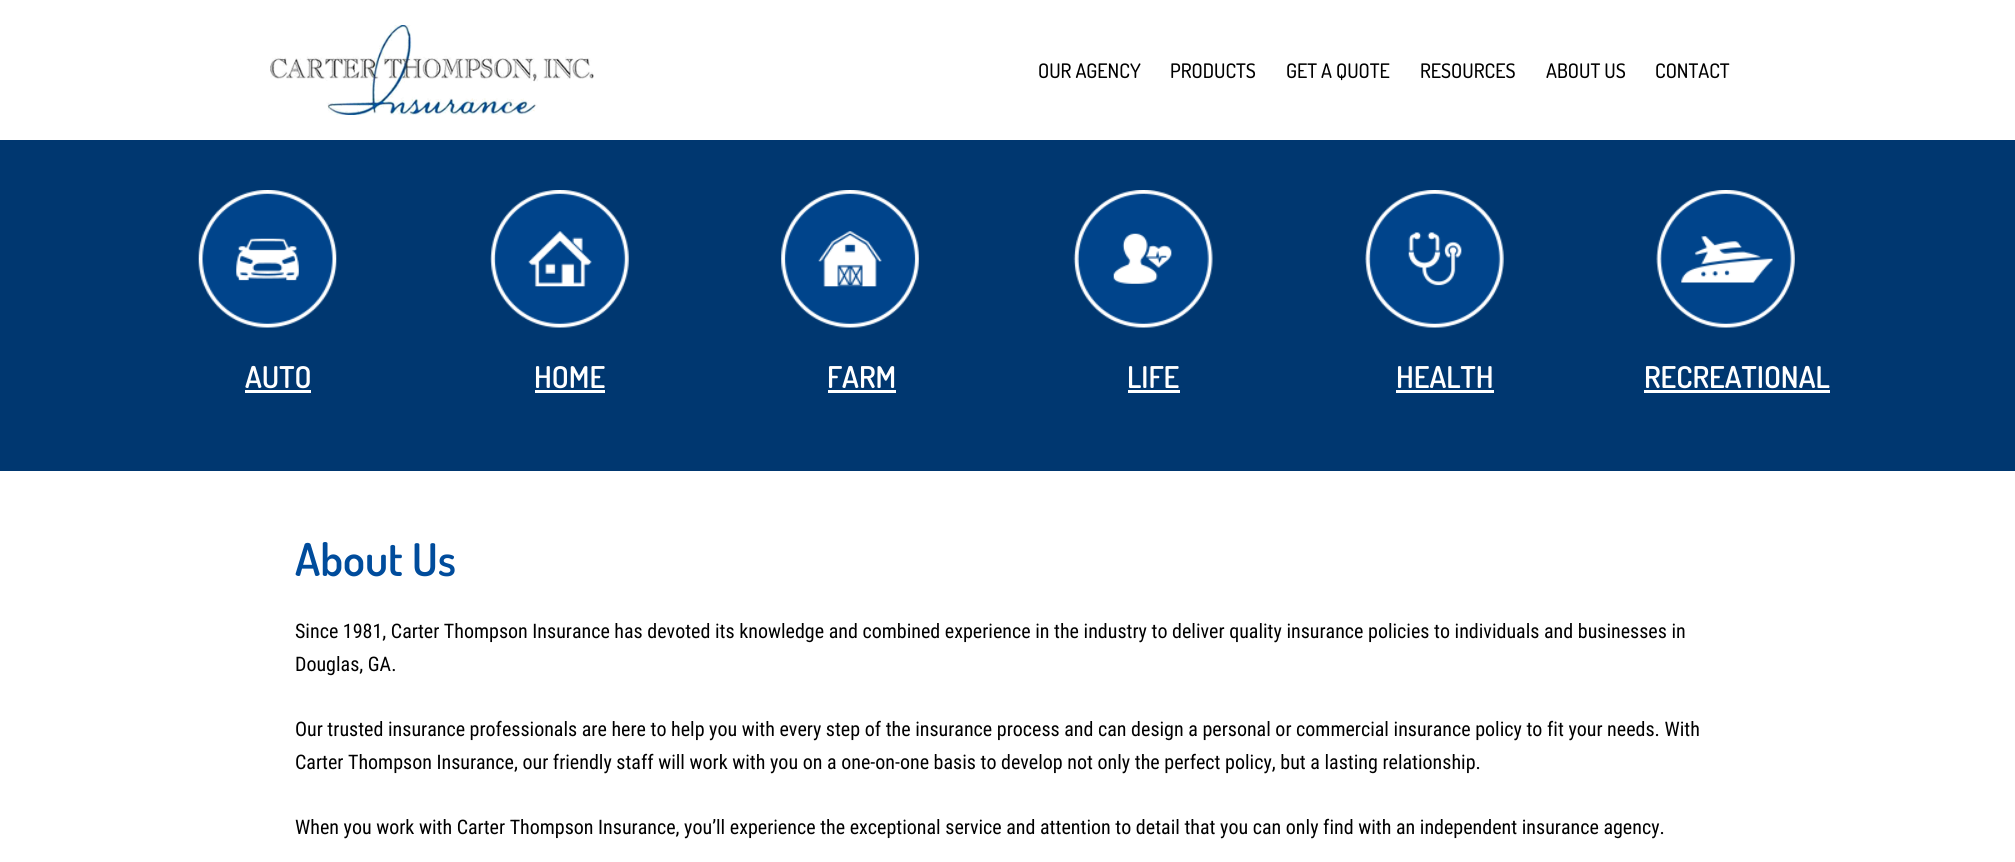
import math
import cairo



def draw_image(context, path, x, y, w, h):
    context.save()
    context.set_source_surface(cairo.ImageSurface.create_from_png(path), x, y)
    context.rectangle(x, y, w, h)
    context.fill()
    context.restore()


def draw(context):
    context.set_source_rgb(1, 1, 1)
    context.paint()
    draw_image(context, "images/1.png", 270, 25, 324, 90)
    context.set_source_rgb(0, 55 / 255, 112 / 255)
    context.rectangle(0, 140, 2015, 331)
    context.fill()
    draw_image(context, "images/2.png", 198, 190, 139, 138)
    context.set_source_rgb(1, 1, 1)
    context.rectangle(245, 390, 66, 3)
    context.fill()
    draw_image(context, "images/3.png", 490, 190, 139, 138)
    context.rectangle(535, 390, 70, 3)
    context.fill()
    draw_image(context, "images/4.png", 781, 190, 138, 138)
    context.rectangle(828, 390, 68, 3)
    context.fill()
    draw_image(context, "images/5.png", 1073, 190, 140, 138)
    context.rectangle(1128, 390, 52, 3)
    context.fill()
    draw_image(context, "images/6.png", 1365, 190, 139, 138)
    context.rectangle(1396, 390, 98, 3)
    context.fill()
    draw_image(context, "images/7.png", 1656, 190, 139, 138)
    context.rectangle(1644, 390, 186, 3)
    context.fill()
    context.select_font_face("Dosis Medium")
    context.set_font_size(20)
    context.set_source_rgb(0, 0, 0)
    context.move_to(1038, 78)
    context.show_text("OUR AGENCY")
    context.move_to(1170, 78)
    context.show_text("PRODUCTS")
    context.move_to(1286, 78)
    context.show_text("GET A QUOTE")
    context.move_to(1420, 78)
    context.show_text("RESOURCES")
    context.move_to(1546, 78)
    context.show_text("ABOUT US")
    context.move_to(1655, 78)
    context.show_text("CONTACT")
    context.select_font_face("Dosis SemiBold")
    context.set_font_size(30)
    context.set_source_rgb(1, 1, 1)
    context.move_to(245, 388)
    context.show_text("AUTO")
    context.move_to(534, 388)
    context.show_text("HOME")
    context.move_to(827, 388)
    context.show_text("FARM")
    context.move_to(1127, 388)
    context.show_text("LIFE")
    context.move_to(1396, 388)
    context.show_text("HEALTH")
    context.move_to(1644, 388)
    context.show_text("RECREATIONAL")
    context.set_font_size(45)
    context.set_source_rgb(0, 76 / 255, 156 / 255)
    context.move_to(295, 576)
    context.show_text("About Us")
    context.select_font_face("Roboto Condensed")
    context.set_font_size(20)
    context.set_source_rgb(0, 0, 0)
    context.move_to(295, 638)
    context.show_text("Since 1981, Carter Thompson Insurance has devoted its knowledge and combined experience in the industry to deliver quality insurance policies to individuals and businesses in")
    context.move_to(295, 671)
    context.show_text("Douglas, GA.")
    context.move_to(295, 736)
    context.show_text("Our trusted insurance professionals are here to help you with every step of the insurance process and can design a personal or commercial insurance policy to fit your needs. With")
    context.move_to(295, 769)
    context.show_text("Carter Thompson Insurance, our friendly staff will work with you on a one-on-one basis to develop not only the perfect policy, but a lasting relationship.")
    context.move_to(295, 834)
    context.show_text("When you work with Carter Thompson Insurance, you’ll experience the exceptional service and attention to detail that you can only find with an independent insurance agency.")


surface = cairo.ImageSurface(cairo.Format.RGB24, 2015, 862)
context = cairo.Context(surface)
options = cairo.FontOptions()
options.set_hint_metrics(cairo.HintMetrics.OFF)
options.set_hint_style(cairo.HintStyle.NONE)
context.set_font_options(options)
context.set_miter_limit(4)
draw(context)
surface.write_to_png("out.png")
